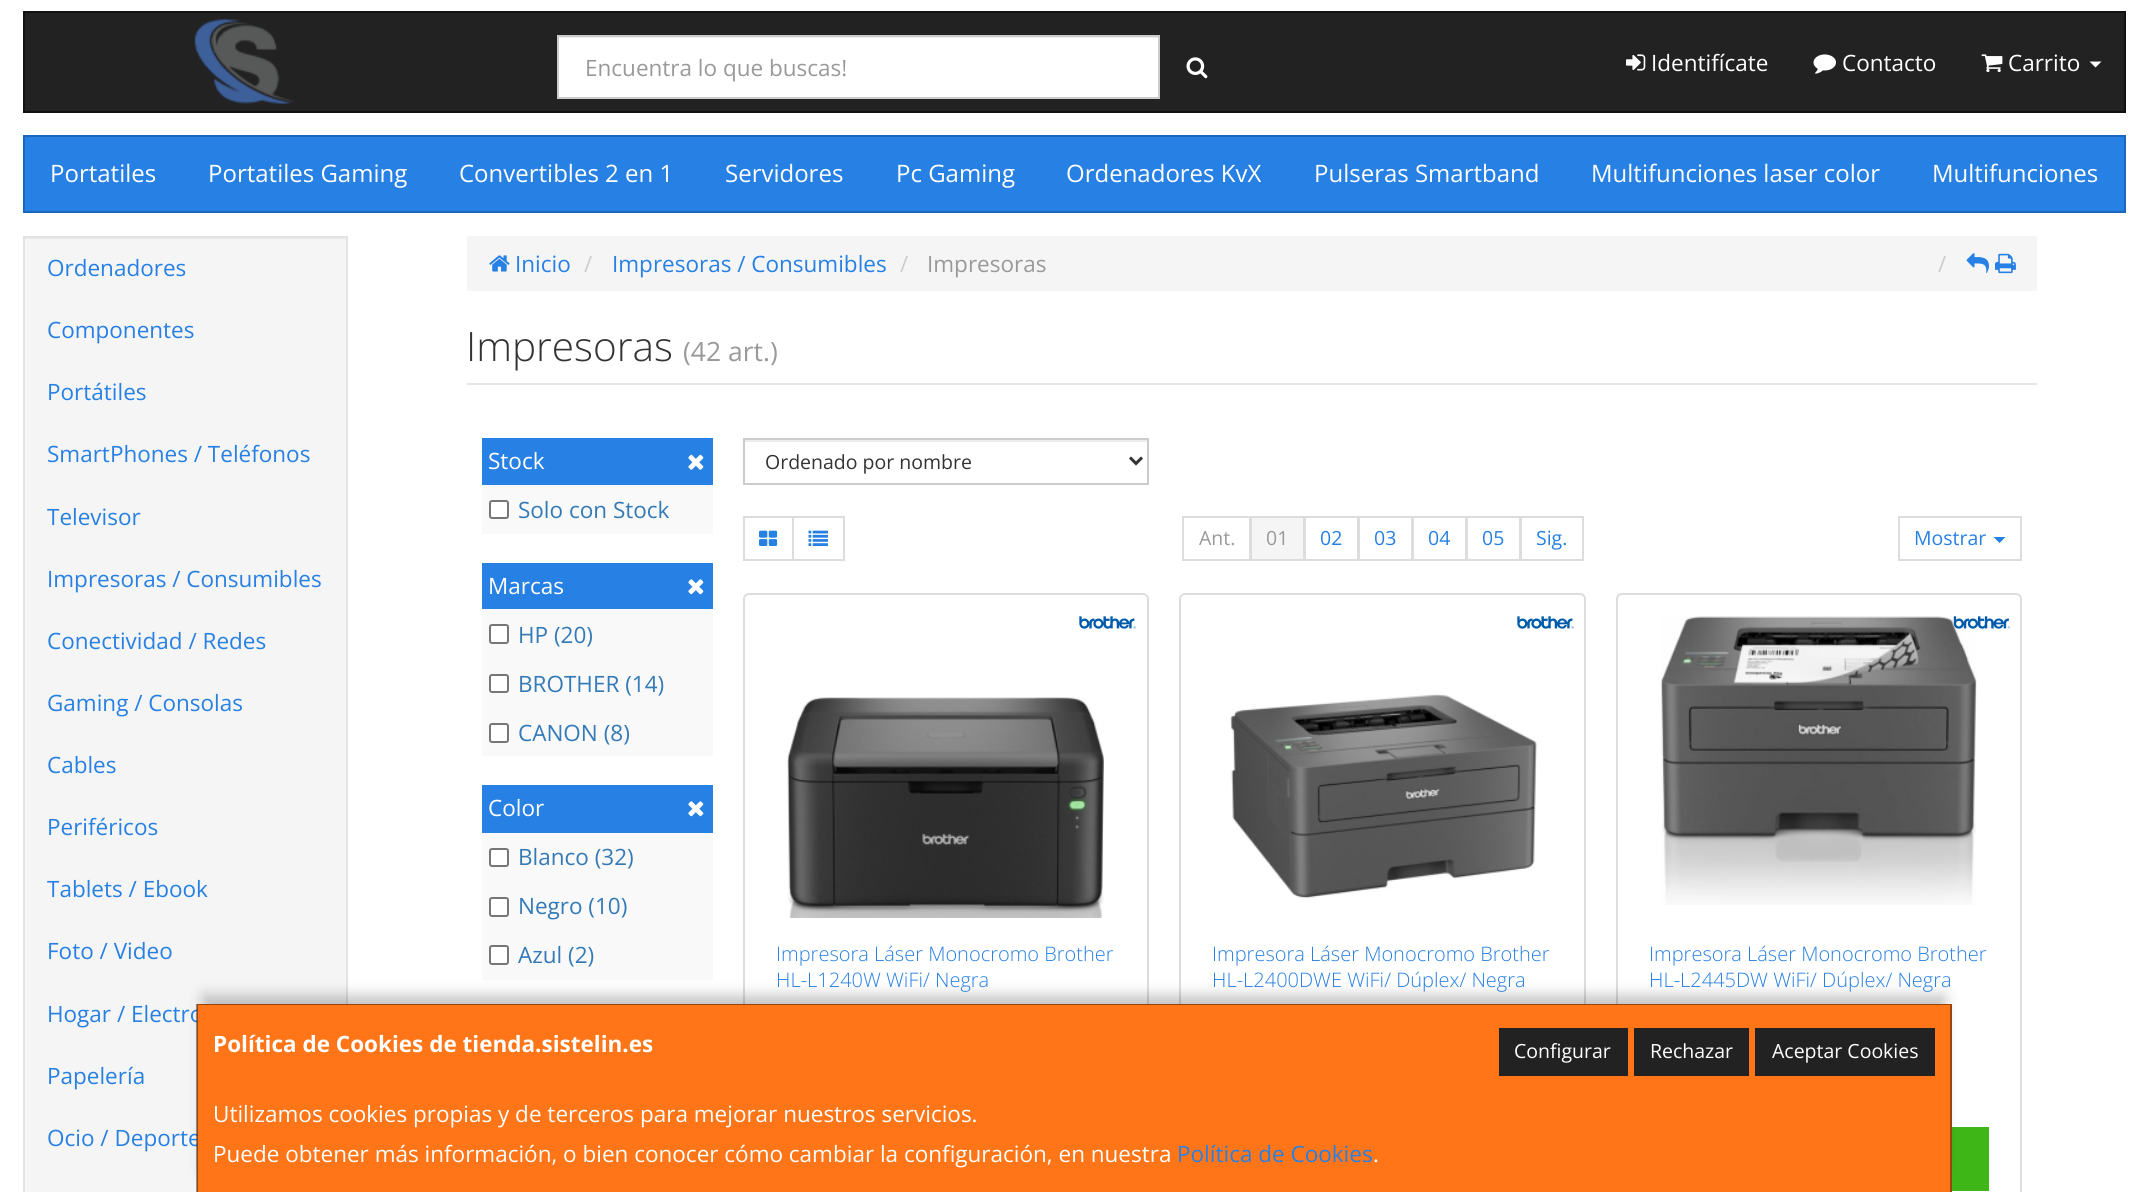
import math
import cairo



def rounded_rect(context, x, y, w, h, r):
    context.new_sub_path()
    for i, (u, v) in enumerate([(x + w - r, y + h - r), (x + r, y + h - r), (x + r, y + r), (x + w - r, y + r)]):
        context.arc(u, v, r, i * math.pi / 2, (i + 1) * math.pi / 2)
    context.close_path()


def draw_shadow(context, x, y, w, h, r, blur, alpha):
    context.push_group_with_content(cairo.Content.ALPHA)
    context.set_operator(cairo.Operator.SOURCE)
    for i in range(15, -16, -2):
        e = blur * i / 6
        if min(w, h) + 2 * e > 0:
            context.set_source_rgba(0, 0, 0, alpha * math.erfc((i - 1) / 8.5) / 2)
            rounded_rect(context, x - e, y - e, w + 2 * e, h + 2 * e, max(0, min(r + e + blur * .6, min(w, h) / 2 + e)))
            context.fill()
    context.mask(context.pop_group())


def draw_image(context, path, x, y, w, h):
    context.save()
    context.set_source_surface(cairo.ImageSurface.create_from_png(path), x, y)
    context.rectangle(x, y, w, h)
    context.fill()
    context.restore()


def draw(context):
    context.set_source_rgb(1, 1, 1)
    context.paint()
    context.set_source_rgb(34 / 255, 34 / 255, 34 / 255)
    context.rectangle(24, 12, 2101, 100)
    context.fill_preserve()
    context.set_source_rgb(18 / 255, 18 / 255, 18 / 255)
    context.stroke()
    draw_image(context, "images/1.png", 194, 19, 100, 85)
    context.set_source_rgb(1, 1, 1)
    context.rectangle(559, 38, 599, 59)
    context.fill()
    context.set_source_rgb(236 / 255, 236 / 255, 236 / 255)
    context.rectangle(558, 37, 600, 1)
    context.fill()
    context.rectangle(558, 36, 601, 62)
    context.set_source_rgb(204 / 255, 204 / 255, 204 / 255)
    context.stroke()
    draw_image(context, "images/2.png", 1186, 57, 22, 22)
    draw_image(context, "images/3.png", 1626, 54, 20, 17)
    draw_image(context, "images/4.png", 1813, 54, 23, 20)
    draw_image(context, "images/5.png", 1981, 54, 22, 19)
    context.set_source_rgb(1, 1, 1)
    context.new_path()
    context.move_to(2089.5, 61.5)
    context.line_to(2101.5, 61.5)
    context.line_to(2095.5, 67.5)
    context.close_path()
    context.fill()
    context.set_source_rgb(39 / 255, 128 / 255, 227 / 255)
    context.rectangle(24, 136, 2101, 76)
    context.fill_preserve()
    context.set_source_rgb(25 / 255, 103 / 255, 190 / 255)
    context.stroke()
    context.set_source_rgb(245 / 255, 245 / 255, 245 / 255)
    context.rectangle(25, 239, 321, 953)
    context.fill()
    context.set_source_rgb(233 / 255, 233 / 255, 233 / 255)
    context.rectangle(24, 238, 323, 1)
    context.fill()
    context.rectangle(24, 237, 323, 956)
    context.set_source_rgb(227 / 255, 227 / 255, 227 / 255)
    context.stroke()
    context.set_source_rgb(245 / 255, 245 / 255, 245 / 255)
    context.rectangle(467, 236, 1570, 55)
    context.fill()
    draw_image(context, "images/6.png", 489, 255, 21, 17)
    draw_image(context, "images/7.png", 1966, 253, 23, 20)
    draw_image(context, "images/8.png", 1995, 253, 21, 21)
    context.set_source_rgb(230 / 255, 230 / 255, 230 / 255)
    context.rectangle(467, 383, 1570, 2)
    context.fill()
    context.set_source_rgb(39 / 255, 128 / 255, 227 / 255)
    context.rectangle(482, 438, 231, 47)
    context.fill()
    draw_image(context, "images/9.png", 688, 454, 16, 16)
    context.set_source_rgb(249 / 255, 249 / 255, 249 / 255)
    context.rectangle(482, 485, 231, 49)
    context.fill()
    context.set_source_rgb(1, 1, 1)
    rounded_rect(context, 490, 501, 18, 17, 2)
    context.fill_preserve()
    context.set_source_rgb(118 / 255, 118 / 255, 118 / 255)
    context.stroke()
    context.set_source_rgb(39 / 255, 128 / 255, 227 / 255)
    context.rectangle(482, 563, 231, 46)
    context.fill()
    draw_image(context, "images/10.png", 688, 579, 16, 16)
    context.set_source_rgb(249 / 255, 249 / 255, 249 / 255)
    context.rectangle(482, 609, 231, 147)
    context.fill()
    context.set_source_rgb(1, 1, 1)
    rounded_rect(context, 490, 625, 18, 18, 2)
    context.fill_preserve()
    context.set_source_rgb(118 / 255, 118 / 255, 118 / 255)
    context.stroke()
    context.set_source_rgb(1, 1, 1)
    rounded_rect(context, 490, 675, 18, 17, 2)
    context.fill_preserve()
    context.set_source_rgb(118 / 255, 118 / 255, 118 / 255)
    context.stroke()
    context.set_source_rgb(1, 1, 1)
    rounded_rect(context, 490, 724, 18, 18, 2)
    context.fill_preserve()
    context.set_source_rgb(118 / 255, 118 / 255, 118 / 255)
    context.stroke()
    context.set_source_rgb(39 / 255, 128 / 255, 227 / 255)
    context.rectangle(482, 785, 231, 48)
    context.fill()
    draw_image(context, "images/10.png", 688, 801, 16, 16)
    context.set_source_rgb(249 / 255, 249 / 255, 249 / 255)
    context.rectangle(482, 833, 231, 147)
    context.fill()
    context.set_source_rgb(1, 1, 1)
    rounded_rect(context, 490, 849, 18, 17, 2)
    context.fill_preserve()
    context.set_source_rgb(118 / 255, 118 / 255, 118 / 255)
    context.stroke()
    context.set_source_rgb(1, 1, 1)
    rounded_rect(context, 490, 898, 18, 18, 2)
    context.fill_preserve()
    context.set_source_rgb(118 / 255, 118 / 255, 118 / 255)
    context.stroke()
    context.set_source_rgb(1, 1, 1)
    rounded_rect(context, 490, 946, 18, 18, 2)
    context.fill_preserve()
    context.set_source_rgb(118 / 255, 118 / 255, 118 / 255)
    context.stroke()
    context.set_source_rgb(236 / 255, 236 / 255, 236 / 255)
    context.rectangle(744, 440, 404, 2)
    context.fill()
    context.rectangle(744, 439, 404, 45)
    context.set_source_rgb(204 / 255, 204 / 255, 204 / 255)
    context.stroke()
    context.new_path()
    context.move_to(1130, 457.5)
    context.line_to(1136, 463.5)
    context.line_to(1142, 457.5)
    context.set_source_rgb(51 / 255, 51 / 255, 51 / 255)
    context.set_line_width(3)
    context.stroke()
    context.rectangle(744, 517, 49, 43)
    context.set_source_rgb(221 / 255, 221 / 255, 221 / 255)
    context.set_line_width(2)
    context.stroke()
    draw_image(context, "images/11.png", 759, 530, 19, 16)
    context.rectangle(793, 517, 51, 43)
    context.stroke()
    draw_image(context, "images/12.png", 808, 530, 20, 16)
    context.rectangle(1183, 517, 67, 43)
    context.stroke()
    context.rectangle(1305, 517, 53, 43)
    context.stroke()
    context.set_source_rgb(245 / 255, 245 / 255, 245 / 255)
    context.rectangle(1251, 517, 53, 43)
    context.fill_preserve()
    context.set_source_rgb(221 / 255, 221 / 255, 221 / 255)
    context.stroke()
    context.rectangle(1359, 517, 53, 43)
    context.stroke()
    context.rectangle(1413, 517, 53, 43)
    context.stroke()
    context.rectangle(1467, 517, 53, 43)
    context.stroke()
    context.rectangle(1521, 517, 62, 43)
    context.stroke()
    context.rectangle(1899, 517, 122, 43)
    context.stroke()
    context.set_source_rgb(39 / 255, 128 / 255, 227 / 255)
    context.new_path()
    context.move_to(1993.5, 537)
    context.line_to(2005.5, 537)
    context.line_to(1999.5, 543)
    context.close_path()
    context.fill()
    rounded_rect(context, 744, 594, 404, 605, 5)
    context.set_source_rgb(221 / 255, 221 / 255, 221 / 255)
    context.stroke()
    draw_image(context, "images/13.png", 1079, 616, 57, 13)
    draw_image(context, "images/14.png", 787, 697, 317, 221)
    rounded_rect(context, 1180, 594, 405, 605, 5)
    context.stroke()
    draw_image(context, "images/13.png", 1517, 616, 57, 13)
    draw_image(context, "images/15.png", 1230, 694, 307, 205)
    rounded_rect(context, 1617, 594, 404, 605, 5)
    context.stroke()
    draw_image(context, "images/16.png", 1660, 616, 317, 289)
    draw_image(context, "images/17.png", 1953, 616, 57, 13)
    context.set_source_rgb(63 / 255, 182 / 255, 24 / 255)
    context.rectangle(1952, 1127, 37, 64)
    context.fill()
    context.set_source_rgb(0, 0, 0)
    draw_shadow(context, 204, 996, 1740, 174, 0, 7.5, 0.25)
    context.select_font_face("Open Sans")
    context.set_font_size(22.5)
    context.set_source_rgb(153 / 255, 153 / 255, 153 / 255)
    context.move_to(585, 76)
    context.show_text("Encuentra lo que buscas!")
    context.set_source_rgb(1, 1, 1)
    context.move_to(1651, 71)
    context.show_text("Identifícate")
    context.move_to(1842, 71)
    context.show_text("Contacto")
    context.move_to(2008, 71)
    context.show_text("Carrito")
    context.set_font_size(24)
    context.move_to(50, 182)
    context.show_text("Portatiles")
    context.move_to(208, 182)
    context.show_text("Portatiles Gaming")
    context.move_to(459, 182)
    context.show_text("Convertibles 2 en 1")
    context.move_to(725, 182)
    context.show_text("Servidores")
    context.move_to(896, 182)
    context.show_text("Pc Gaming")
    context.move_to(1066, 182)
    context.show_text("Ordenadores KvX")
    context.move_to(1314, 182)
    context.show_text("Pulseras Smartband")
    context.move_to(1591, 182)
    context.show_text("Multifunciones laser color")
    context.move_to(1932, 182)
    context.show_text("Multifunciones")
    context.set_font_size(22.5)
    context.set_source_rgb(39 / 255, 128 / 255, 227 / 255)
    context.move_to(47, 276)
    context.show_text("Ordenadores")
    context.move_to(47, 338)
    context.show_text("Componentes")
    context.move_to(47, 400)
    context.show_text("Portátiles")
    context.move_to(47, 462)
    context.show_text("SmartPhones / Teléfonos")
    context.move_to(47, 525)
    context.show_text("Televisor")
    context.move_to(47, 587)
    context.show_text("Impresoras / Consumibles")
    context.move_to(47, 649)
    context.show_text("Conectividad / Redes")
    context.move_to(47, 711)
    context.show_text("Gaming / Consolas")
    context.move_to(47, 773)
    context.show_text("Cables")
    context.move_to(47, 835)
    context.show_text("Periféricos")
    context.move_to(47, 897)
    context.show_text("Tablets / Ebook")
    context.move_to(47, 959)
    context.show_text("Foto / Video")
    context.move_to(47, 1022)
    context.show_text("Hogar / Electro")
    context.move_to(47, 1084)
    context.show_text("Papelería")
    context.move_to(47, 1146)
    context.show_text("Ocio / Deporte")
    context.move_to(515, 272)
    context.show_text("Inicio")
    context.set_source_rgb(204 / 255, 204 / 255, 204 / 255)
    context.move_to(584, 272)
    context.show_text("/")
    context.set_source_rgb(39 / 255, 128 / 255, 227 / 255)
    context.move_to(612, 272)
    context.show_text("Impresoras / Consumibles")
    context.set_source_rgb(204 / 255, 204 / 255, 204 / 255)
    context.move_to(900, 272)
    context.show_text("/")
    context.set_source_rgb(153 / 255, 153 / 255, 153 / 255)
    context.move_to(927, 272)
    context.show_text("Impresoras")
    context.set_source_rgb(204 / 255, 204 / 255, 204 / 255)
    context.move_to(1938, 272)
    context.show_text("/")
    context.select_font_face("Open Sans Light")
    context.set_font_size(40.5)
    context.set_source_rgb(51 / 255, 51 / 255, 51 / 255)
    context.move_to(466, 361)
    context.show_text("Impresoras")
    context.select_font_face("Open Sans")
    context.set_font_size(26.5)
    context.set_source_rgb(153 / 255, 153 / 255, 153 / 255)
    context.move_to(683, 361)
    context.show_text("(42 art.)")
    context.set_font_size(22.5)
    context.set_source_rgb(1, 1, 1)
    context.move_to(488, 469)
    context.show_text("Stock")
    context.set_source_rgb(51 / 255, 122 / 255, 183 / 255)
    context.move_to(518, 518)
    context.show_text("Solo con Stock")
    context.set_source_rgb(1, 1, 1)
    context.move_to(488, 594)
    context.show_text("Marcas")
    context.set_source_rgb(51 / 255, 122 / 255, 183 / 255)
    context.move_to(518, 643)
    context.show_text("HP (20)")
    context.move_to(518, 692)
    context.show_text("BROTHER (14)")
    context.move_to(518, 741)
    context.show_text("CANON (8)")
    context.set_source_rgb(1, 1, 1)
    context.move_to(488, 816)
    context.show_text("Color")
    context.set_source_rgb(51 / 255, 122 / 255, 183 / 255)
    context.move_to(518, 865)
    context.show_text("Blanco (32)")
    context.move_to(518, 914)
    context.show_text("Negro (10)")
    context.move_to(518, 963)
    context.show_text("Azul (2)")
    context.set_font_size(19.5)
    context.set_source_rgb(51 / 255, 51 / 255, 51 / 255)
    context.move_to(765, 469)
    context.show_text("Ordenado por nombre")
    context.set_source_rgb(153 / 255, 153 / 255, 153 / 255)
    context.move_to(1199, 545)
    context.show_text("Ant.")
    context.move_to(1266, 545)
    context.show_text("01")
    context.set_source_rgb(39 / 255, 128 / 255, 227 / 255)
    context.move_to(1320, 545)
    context.show_text("02")
    context.move_to(1374, 545)
    context.show_text("03")
    context.move_to(1428, 545)
    context.show_text("04")
    context.move_to(1482, 545)
    context.show_text("05")
    context.move_to(1536, 545)
    context.show_text("Sig.")
    context.move_to(1914, 545)
    context.show_text("Mostrar")
    context.select_font_face("Open Sans Light")
    context.set_font_size(20)
    context.move_to(776, 961)
    context.show_text("Impresora Láser Monocromo Brother")
    context.move_to(776, 987)
    context.show_text("HL-L1240W WiFi/ Negra")
    context.move_to(1212, 961)
    context.show_text("Impresora Láser Monocromo Brother")
    context.move_to(1212, 987)
    context.show_text("HL-L2400DWE WiFi/ Dúplex/ Negra")
    context.move_to(1649, 961)
    context.show_text("Impresora Láser Monocromo Brother")
    context.move_to(1649, 987)
    context.show_text("HL-L2445DW WiFi/ Dúplex/ Negra")
    context.set_source_rgb(1, 117 / 255, 24 / 255)
    context.rectangle(197, 1004, 1755, 188)
    context.fill()
    context.set_source_rgb(153 / 255, 70 / 255, 14 / 255)
    context.new_path()
    context.move_to(196, 1004)
    context.line_to(1952, 1004)
    context.line_to(1950, 1005)
    context.line_to(198, 1005)
    context.close_path()
    context.fill()
    context.set_source_rgba(0, 0, 0, 0.4)
    context.new_path()
    context.move_to(1952, 1004)
    context.line_to(1952, 1192)
    context.line_to(1950, 1192)
    context.line_to(1950, 1005)
    context.close_path()
    context.fill()
    context.new_path()
    context.move_to(196, 1192)
    context.line_to(196, 1004)
    context.line_to(198, 1005)
    context.line_to(198, 1192)
    context.close_path()
    context.fill()
    context.select_font_face("Open Sans", cairo.FontSlant.NORMAL, cairo.FontWeight.BOLD)
    context.set_font_size(22.5)
    context.set_source_rgb(1, 1, 1)
    context.move_to(213, 1052)
    context.show_text("Política de Cookies de tienda.sistelin.es")
    context.set_source_rgb(34 / 255, 34 / 255, 34 / 255)
    context.rectangle(1499, 1028, 129, 48)
    context.fill()
    context.select_font_face("Open Sans")
    context.set_font_size(19.5)
    context.set_source_rgb(1, 1, 1)
    context.move_to(1514, 1058)
    context.show_text("Configurar")
    context.set_source_rgb(34 / 255, 34 / 255, 34 / 255)
    context.rectangle(1634, 1028, 115, 48)
    context.fill()
    context.set_source_rgb(1, 1, 1)
    context.move_to(1650, 1058)
    context.show_text("Rechazar")
    context.set_source_rgb(34 / 255, 34 / 255, 34 / 255)
    context.rectangle(1755, 1028, 180, 48)
    context.fill()
    context.set_source_rgb(1, 1, 1)
    context.move_to(1772, 1058)
    context.show_text("Aceptar Cookies")
    context.set_font_size(22.5)
    context.move_to(213, 1122)
    context.show_text("Utilizamos cookies propias y de terceros para mejorar nuestros servicios.")
    context.move_to(213, 1162)
    context.show_text("Puede obtener más información, o bien conocer cómo cambiar la configuración, en nuestra")
    context.set_source_rgb(39 / 255, 128 / 255, 227 / 255)
    context.move_to(1177, 1162)
    context.show_text("Política de Cookies")
    context.set_source_rgb(1, 1, 1)
    context.move_to(1373, 1162)
    context.show_text(".")


surface = cairo.ImageSurface(cairo.Format.RGB24, 2148, 1192)
context = cairo.Context(surface)
options = cairo.FontOptions()
options.set_hint_metrics(cairo.HintMetrics.OFF)
options.set_hint_style(cairo.HintStyle.NONE)
context.set_font_options(options)
context.set_miter_limit(4)
draw(context)
surface.write_to_png("out.png")
